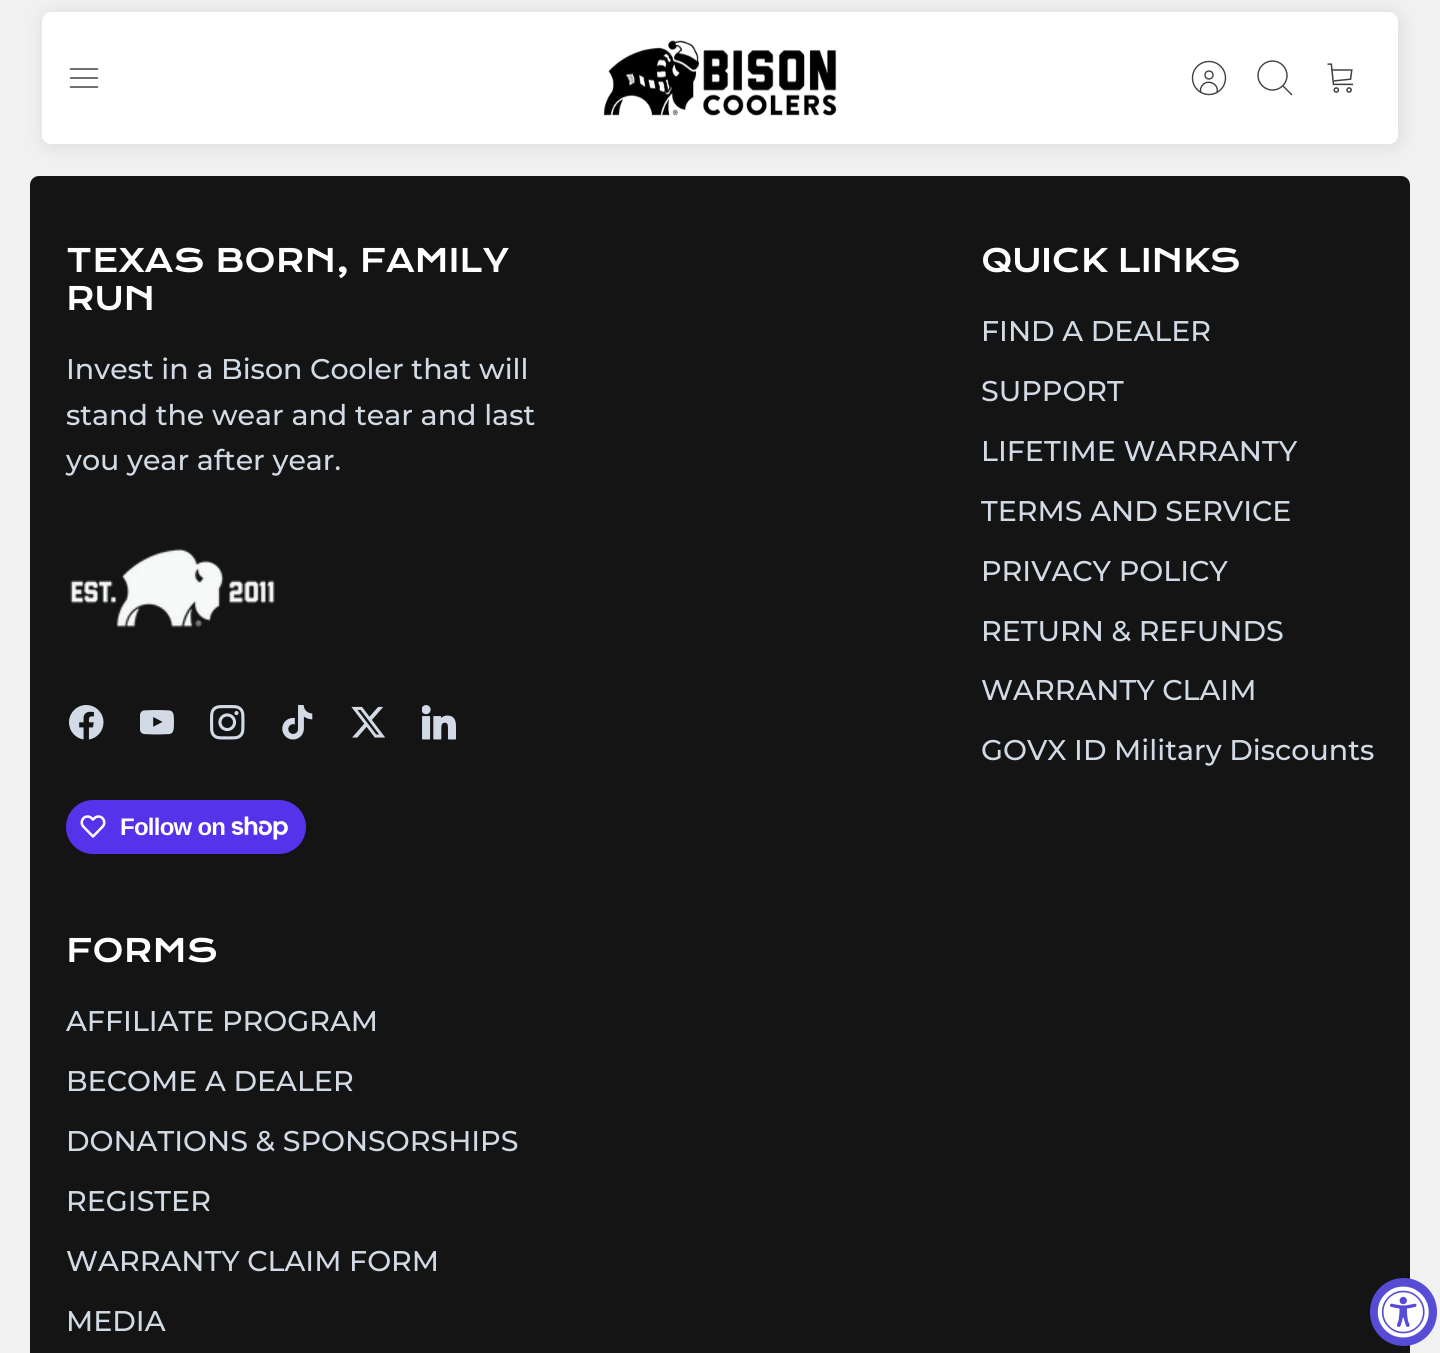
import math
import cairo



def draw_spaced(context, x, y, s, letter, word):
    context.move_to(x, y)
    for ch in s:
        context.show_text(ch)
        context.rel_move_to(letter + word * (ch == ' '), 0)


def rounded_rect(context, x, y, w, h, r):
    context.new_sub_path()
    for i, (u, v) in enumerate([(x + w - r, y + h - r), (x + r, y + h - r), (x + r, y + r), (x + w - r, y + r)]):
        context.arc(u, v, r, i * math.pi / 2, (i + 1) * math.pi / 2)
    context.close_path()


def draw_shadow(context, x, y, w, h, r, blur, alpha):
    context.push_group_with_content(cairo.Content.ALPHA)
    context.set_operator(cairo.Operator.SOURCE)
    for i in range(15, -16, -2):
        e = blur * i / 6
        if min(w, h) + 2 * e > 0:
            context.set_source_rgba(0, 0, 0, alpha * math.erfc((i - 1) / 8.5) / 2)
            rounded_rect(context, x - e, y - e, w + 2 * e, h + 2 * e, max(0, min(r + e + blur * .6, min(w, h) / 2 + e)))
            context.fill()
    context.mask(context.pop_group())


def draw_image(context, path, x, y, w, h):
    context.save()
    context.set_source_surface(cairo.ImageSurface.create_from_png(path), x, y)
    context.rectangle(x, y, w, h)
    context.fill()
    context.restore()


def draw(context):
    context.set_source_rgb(241 / 255, 241 / 255, 241 / 255)
    context.paint()
    context.set_source_rgb(0, 0, 0)
    draw_shadow(context, 44, 14, 1356, 132, 9, 9, 0.1)
    context.set_source_rgb(1, 1, 1)
    rounded_rect(context, 42, 12, 1356, 132, 9)
    context.fill()
    context.new_path()
    context.move_to(70.5, 78)
    context.line_to(97.5, 78)
    context.move_to(70.5, 69)
    context.line_to(97.5, 69)
    context.move_to(70.5, 87)
    context.line_to(97.5, 87)
    context.set_source_rgb(60 / 255, 64 / 255, 67 / 255)
    context.set_line_width(1.5)
    context.set_line_cap(cairo.LineCap.ROUND)
    context.set_line_join(cairo.LineJoin.ROUND)
    context.stroke()
    draw_image(context, "images/1.png", 603, 40, 234, 76)
    context.new_path()
    context.move_to(1217, 92.5)
    context.curve_to(1219.5, 83.5, 1206.5, 78, 1201.5, 86.5)
    context.curve_to(1200.5, 88.5, 1200, 90.5, 1201, 92.5)
    context.set_line_width(1.4)
    context.set_line_cap(cairo.LineCap.BUTT)
    context.set_line_join(cairo.LineJoin.MITER)
    context.stroke()
    context.arc(1209, 75, 4, 0, 2 * math.pi)
    context.stroke()
    context.arc(1209, 78, 16.5, 0, 2 * math.pi)
    context.stroke()
    context.arc(1272.5, 75.5, 14.5, 0, 2 * math.pi)
    context.stroke()
    context.new_path()
    context.move_to(1283.5, 86.5)
    context.line_to(1291.5, 94.5)
    context.set_line_cap(cairo.LineCap.SQUARE)
    context.stroke()
    draw_image(context, "images/2.png", 1327, 63, 26, 30)
    context.set_source_rgb(20 / 255, 20 / 255, 20 / 255)
    rounded_rect(context, 30, 176, 1380, 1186, 9)
    context.fill()
    draw_image(context, "images/3.png", 70, 548, 205, 80)
    draw_image(context, "images/4.png", 69, 705, 35, 35)
    draw_image(context, "images/5.png", 140, 710, 34, 25)
    draw_image(context, "images/6.png", 210, 705, 35, 35)
    draw_image(context, "images/7.png", 282, 705, 31, 35)
    draw_image(context, "images/8.png", 351, 706, 35, 32)
    draw_image(context, "images/9.png", 422, 705, 34, 35)
    context.set_source_rgb(84 / 255, 51 / 255, 235 / 255)
    rounded_rect(context, 66, 800, 240, 54, 27)
    context.fill()
    draw_image(context, "images/10.png", 80, 815, 26, 23)
    draw_image(context, "images/11.png", 231, 816, 57, 24)
    context.set_source_rgb(87 / 255, 76 / 255, 213 / 255)
    rounded_rect(context, 1370, 1278, 67, 68, 33.5)
    context.fill()
    draw_image(context, "images/12.png", 1377, 1286, 52, 52)
    context.select_font_face("Krona One")
    context.set_font_size(31.5)
    context.set_source_rgb(1, 1, 1)
    context.move_to(66, 272)
    context.show_text("TEXAS BORN, FAMILY")
    context.move_to(66, 310)
    context.show_text("RUN")
    context.select_font_face("Montserrat Medium")
    context.set_font_size(28.5)
    context.set_source_rgb(210 / 255, 219 / 255, 229 / 255)
    context.move_to(66, 379)
    context.show_text("Invest in a Bison Cooler that will")
    context.move_to(66, 425)
    context.show_text("stand the wear and tear and last")
    context.move_to(66, 470)
    context.show_text("you year after year.")
    context.select_font_face("Liberation Sans", cairo.FontSlant.NORMAL, cairo.FontWeight.BOLD)
    context.set_font_size(24)
    context.set_source_rgb(1, 1, 1)
    draw_spaced(context, 120, 835, "Follow on", -0.75, 0)
    context.select_font_face("Krona One")
    context.set_font_size(31.5)
    context.move_to(981, 272)
    context.show_text("QUICK LINKS")
    context.select_font_face("Montserrat Medium")
    context.set_font_size(28.5)
    context.set_source_rgb(210 / 255, 219 / 255, 229 / 255)
    context.move_to(981, 341)
    context.show_text("FIND A DEALER")
    context.move_to(981, 401)
    context.show_text("SUPPORT")
    context.move_to(981, 461)
    context.show_text("LIFETIME WARRANTY")
    context.move_to(981, 521)
    context.show_text("TERMS AND SERVICE")
    context.move_to(981, 581)
    context.show_text("PRIVACY POLICY")
    context.move_to(981, 641)
    context.show_text("RETURN & REFUNDS")
    context.move_to(981, 700)
    context.show_text("WARRANTY CLAIM")
    context.move_to(981, 760)
    context.show_text("GOVX ID Military Discounts")
    context.select_font_face("Krona One")
    context.set_font_size(31.5)
    context.set_source_rgb(1, 1, 1)
    context.move_to(66, 962)
    context.show_text("FORMS")
    context.select_font_face("Montserrat Medium")
    context.set_font_size(28.5)
    context.set_source_rgb(210 / 255, 219 / 255, 229 / 255)
    context.move_to(66, 1031)
    context.show_text("AFFILIATE PROGRAM")
    context.move_to(66, 1091)
    context.show_text("BECOME A DEALER")
    context.move_to(66, 1151)
    context.show_text("DONATIONS & SPONSORSHIPS")
    context.move_to(66, 1211)
    context.show_text("REGISTER")
    context.move_to(66, 1271)
    context.show_text("WARRANTY CLAIM FORM")
    context.move_to(66, 1331)
    context.show_text("MEDIA")


surface = cairo.ImageSurface(cairo.Format.RGB24, 1440, 1353)
context = cairo.Context(surface)
options = cairo.FontOptions()
options.set_hint_metrics(cairo.HintMetrics.OFF)
options.set_hint_style(cairo.HintStyle.NONE)
context.set_font_options(options)
context.set_miter_limit(4)
draw(context)
surface.write_to_png("out.png")
